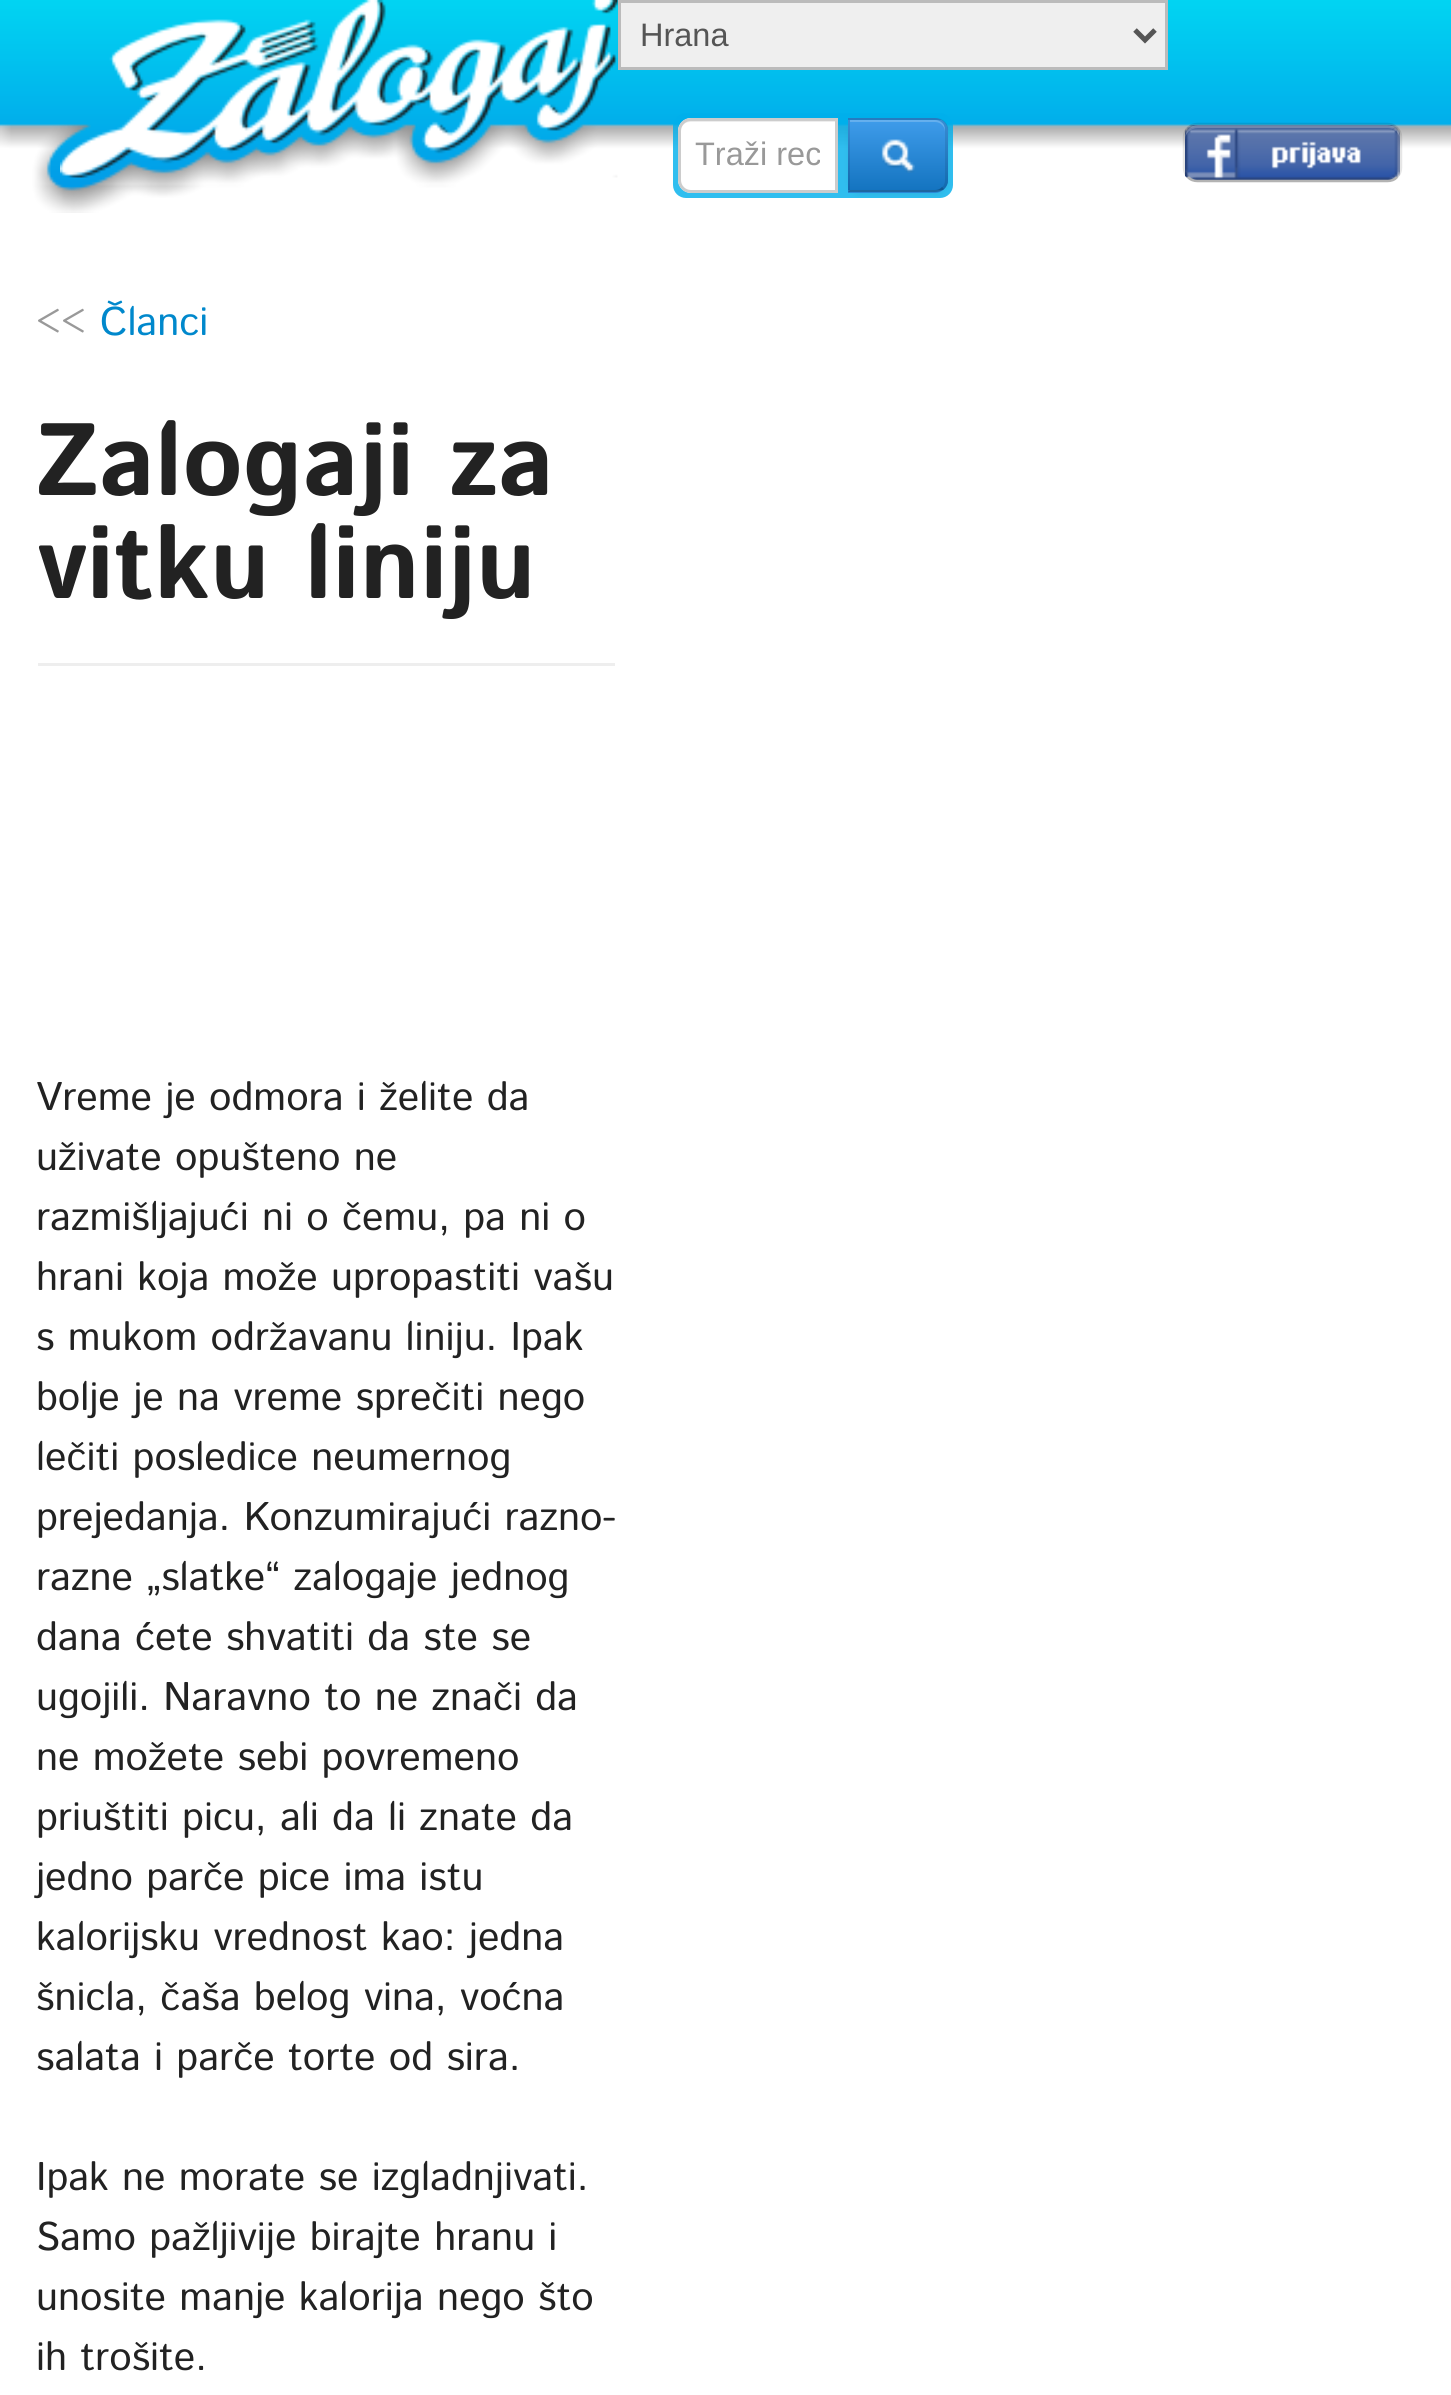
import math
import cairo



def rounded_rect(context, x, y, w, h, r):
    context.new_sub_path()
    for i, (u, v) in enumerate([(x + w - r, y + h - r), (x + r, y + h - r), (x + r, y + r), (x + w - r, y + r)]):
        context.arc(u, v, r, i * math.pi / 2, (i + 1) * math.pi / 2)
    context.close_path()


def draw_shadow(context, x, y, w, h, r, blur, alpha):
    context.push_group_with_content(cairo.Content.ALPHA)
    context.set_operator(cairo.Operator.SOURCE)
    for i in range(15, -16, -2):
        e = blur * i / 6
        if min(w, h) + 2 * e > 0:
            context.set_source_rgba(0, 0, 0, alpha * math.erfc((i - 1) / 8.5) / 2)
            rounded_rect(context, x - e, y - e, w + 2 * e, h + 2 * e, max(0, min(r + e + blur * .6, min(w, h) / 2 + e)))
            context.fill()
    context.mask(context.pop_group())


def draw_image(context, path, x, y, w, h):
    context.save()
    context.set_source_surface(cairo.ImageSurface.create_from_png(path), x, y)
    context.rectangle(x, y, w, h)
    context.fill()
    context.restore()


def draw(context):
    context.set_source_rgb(1, 1, 1)
    context.paint()
    draw_image(context, "images/1.png", 0, 0, 1451, 213)
    draw_image(context, "images/2.png", 60, 0, 558, 178)
    context.set_source_rgb(239 / 255, 239 / 255, 239 / 255)
    context.rectangle(619.5, 1.5, 547, 67)
    context.fill_preserve()
    context.set_source_rgb(187 / 255, 187 / 255, 187 / 255)
    context.set_line_width(3)
    context.stroke()
    context.new_path()
    context.move_to(1135, 30)
    context.line_to(1145, 40)
    context.line_to(1155, 30)
    context.set_source_rgb(85 / 255, 85 / 255, 85 / 255)
    context.set_line_width(5)
    context.stroke()
    context.set_source_rgba(1 / 255, 175 / 255, 235 / 255, 0.81)
    rounded_rect(context, 673, 113, 280, 85, 13)
    context.fill()
    context.set_source_rgb(1, 1, 1)
    context.new_path()
    context.move_to(691, 118)
    context.line_to(838, 118)
    context.line_to(838, 193)
    context.line_to(691, 193)
    context.curve_to(684, 193, 678, 187, 678, 180)
    context.line_to(678, 131)
    context.curve_to(678, 124, 684, 118, 691, 118)
    context.close_path()
    context.fill()
    context.set_source_rgb(237 / 255, 237 / 255, 237 / 255)
    context.new_path()
    context.move_to(690, 122)
    context.line_to(835, 122)
    context.line_to(835, 120)
    context.line_to(690, 120)
    context.curve_to(684, 120, 680, 124, 680, 130)
    context.line_to(680, 132)
    context.curve_to(680, 127, 684, 122, 690, 122)
    context.close_path()
    context.fill()
    context.new_path()
    context.move_to(691, 119.5)
    context.line_to(836.5, 119.5)
    context.line_to(836.5, 191.5)
    context.line_to(691, 191.5)
    context.curve_to(684.5, 191.5, 679.5, 186.5, 679.5, 180)
    context.line_to(679.5, 131)
    context.curve_to(679.5, 124.5, 684.5, 119.5, 691, 119.5)
    context.close_path()
    context.set_source_rgb(204 / 255, 204 / 255, 204 / 255)
    context.set_line_width(3)
    context.stroke()
    context.set_source_rgb(0, 0, 0)
    draw_shadow(context, 848, 120, 100, 75, 13, 2.5, 0.05)
    context.set_source_rgb(41 / 255, 136 / 255, 213 / 255)
    context.new_path()
    context.move_to(848, 118)
    context.line_to(935, 118)
    context.curve_to(942, 118, 948, 124, 948, 131)
    context.line_to(948, 180)
    context.curve_to(948, 187, 942, 193, 935, 193)
    context.line_to(848, 193)
    context.close_path()
    context.fill()
    context.save()
    context.new_path()
    context.move_to(848, 118)
    context.line_to(935, 118)
    context.curve_to(942, 118, 948, 124, 948, 131)
    context.line_to(948, 180)
    context.curve_to(948, 187, 942, 193, 935, 193)
    context.line_to(848, 193)
    context.close_path()
    context.clip()
    gradient = cairo.LinearGradient(898, 120, 898, 190)
    gradient.add_color_stop_rgba(0, 63 / 255, 156 / 255, 234 / 255, 1)
    gradient.add_color_stop_rgba(1, 20 / 255, 116 / 255, 192 / 255, 1)
    context.set_source(gradient)
    context.rectangle(848, 120, 100, 70)
    context.fill()
    context.restore()
    context.set_source_rgba(1, 1, 1, 0.2)
    context.new_path()
    context.move_to(850, 122)
    context.line_to(935, 122)
    context.curve_to(941, 122, 945, 127, 945, 132)
    context.line_to(945, 130)
    context.curve_to(945, 124, 941, 120, 935, 120)
    context.line_to(850, 120)
    context.close_path()
    context.fill()
    context.set_source_rgba(0, 0, 0, 0.1)
    context.new_path()
    context.move_to(848, 118)
    context.line_to(850, 120)
    context.line_to(935, 120)
    context.curve_to(938, 120, 940, 121, 942, 123)
    context.line_to(944, 121)
    context.curve_to(942, 119, 938, 118, 935, 118)
    context.close_path()
    context.fill()
    context.new_path()
    context.move_to(944, 121)
    context.curve_to(946, 123, 947, 124, 948, 127)
    context.line_to(948, 183)
    context.curve_to(947, 186, 946, 187, 944, 189)
    context.line_to(942, 187)
    context.curve_to(944, 186, 945, 183, 945, 180)
    context.line_to(945, 130)
    context.curve_to(945, 127, 944, 124, 942, 123)
    context.close_path()
    context.fill()
    context.set_source_rgba(0, 0, 0, 0.25)
    context.new_path()
    context.move_to(944, 189)
    context.curve_to(942, 191, 938, 192, 935, 192)
    context.line_to(848, 192)
    context.line_to(850, 190)
    context.line_to(935, 190)
    context.curve_to(938, 190, 940, 189, 942, 187)
    context.close_path()
    context.fill()
    context.set_source_rgba(0, 0, 0, 0.1)
    context.new_path()
    context.move_to(850, 120)
    context.line_to(848, 118)
    context.line_to(848, 192)
    context.line_to(850, 190)
    context.close_path()
    context.fill()
    draw_image(context, "images/3.png", 881, 139, 34, 34)
    draw_image(context, "images/4.png", 1185, 125, 215, 55)
    context.set_source_rgba(1, 1, 1, 0.2)
    context.new_path()
    context.move_to(1198, 128)
    context.line_to(1388, 128)
    context.curve_to(1394, 128, 1400, 133, 1400, 140)
    context.line_to(1400, 138)
    context.curve_to(1400, 131, 1394, 125, 1387, 125)
    context.line_to(1198, 125)
    context.curve_to(1191, 125, 1185, 131, 1185, 138)
    context.line_to(1185, 140)
    context.curve_to(1185, 133, 1191, 128, 1198, 128)
    context.close_path()
    context.fill()
    context.new_path()
    context.move_to(1397, 177)
    context.curve_to(1394.5, 180, 1391, 181, 1387.5, 181)
    context.line_to(1197.5, 181)
    context.curve_to(1194, 181, 1190.5, 180, 1188, 177)
    context.set_source_rgb(179 / 255, 179 / 255, 179 / 255)
    context.set_line_width(2.5)
    context.stroke()
    context.new_path()
    context.move_to(1188, 177)
    context.curve_to(1185, 174.5, 1184, 171, 1184, 167.5)
    context.line_to(1184, 137.5)
    context.curve_to(1184, 134, 1185, 130.5, 1188, 128)
    context.curve_to(1190.5, 125, 1194, 124, 1197.5, 124)
    context.line_to(1387.5, 124)
    context.curve_to(1391, 124, 1394.5, 125, 1397, 128)
    context.curve_to(1400, 130.5, 1401, 134, 1401, 137.5)
    context.line_to(1401, 167.5)
    context.curve_to(1401, 171, 1400, 174.5, 1397, 177)
    context.set_source_rgba(0, 0, 0, 0.1)
    context.stroke()
    context.set_source_rgb(238 / 255, 238 / 255, 238 / 255)
    context.rectangle(38, 663, 577, 3)
    context.fill()
    context.select_font_face("Liberation Sans")
    context.set_font_size(32.5)
    context.set_source_rgb(85 / 255, 85 / 255, 85 / 255)
    context.move_to(640, 46)
    context.show_text("Hrana")
    context.save()
    context.rectangle(695, 135, 125, 38)
    context.clip()
    context.set_source_rgb(153 / 255, 153 / 255, 153 / 255)
    context.move_to(695, 165)
    context.show_text("Traži rec")
    context.restore()
    context.select_font_face("Istok Web")
    context.set_font_size(40)
    context.set_source_rgb(153 / 255, 153 / 255, 153 / 255)
    context.move_to(36, 335)
    context.show_text("<<")
    context.set_source_rgb(0, 136 / 255, 204 / 255)
    context.move_to(100, 335)
    context.show_text("Članci")
    context.select_font_face("Istok Web", cairo.FontSlant.NORMAL, cairo.FontWeight.BOLD)
    context.set_font_size(102.5)
    context.set_source_rgb(34 / 255, 34 / 255, 34 / 255)
    context.move_to(36, 495)
    context.show_text("Zalogaji za")
    context.move_to(36, 598)
    context.show_text("vitku liniju")
    context.select_font_face("Istok Web")
    context.set_font_size(40)
    context.move_to(36, 1110)
    context.show_text("Vreme je odmora i želite da")
    context.move_to(36, 1170)
    context.show_text("uživate opušteno ne")
    context.move_to(36, 1230)
    context.show_text("razmišljajući ni o čemu, pa ni o")
    context.move_to(36, 1290)
    context.show_text("hrani koja može upropastiti vašu")
    context.move_to(36, 1350)
    context.show_text("s mukom održavanu liniju. Ipak")
    context.move_to(36, 1410)
    context.show_text("bolje je na vreme sprečiti nego")
    context.move_to(36, 1470)
    context.show_text("lečiti posledice neumernog")
    context.move_to(36, 1530)
    context.show_text("prejedanja. Konzumirajući razno-")
    context.move_to(36, 1590)
    context.show_text("razne „slatke“ zalogaje jednog")
    context.move_to(36, 1650)
    context.show_text("dana ćete shvatiti da ste se")
    context.move_to(36, 1710)
    context.show_text("ugojili. Naravno to ne znači da")
    context.move_to(36, 1770)
    context.show_text("ne možete sebi povremeno")
    context.move_to(36, 1830)
    context.show_text("priuštiti picu, ali da li znate da")
    context.move_to(36, 1890)
    context.show_text("jedno parče pice ima istu")
    context.move_to(36, 1950)
    context.show_text("kalorijsku vrednost kao: jedna")
    context.move_to(36, 2010)
    context.show_text("šnicla, čaša belog vina, voćna")
    context.move_to(36, 2070)
    context.show_text("salata i parče torte od sira.")
    context.move_to(36, 2190)
    context.show_text("Ipak ne morate se izgladnjivati.")
    context.move_to(36, 2250)
    context.show_text("Samo pažljivije birajte hranu i")
    context.move_to(36, 2310)
    context.show_text("unosite manje kalorija nego što")
    context.move_to(36, 2370)
    context.show_text("ih trošite.")


surface = cairo.ImageSurface(cairo.Format.RGB24, 1451, 2395)
context = cairo.Context(surface)
options = cairo.FontOptions()
options.set_hint_metrics(cairo.HintMetrics.OFF)
options.set_hint_style(cairo.HintStyle.NONE)
context.set_font_options(options)
context.set_miter_limit(4)
draw(context)
surface.write_to_png("out.png")
